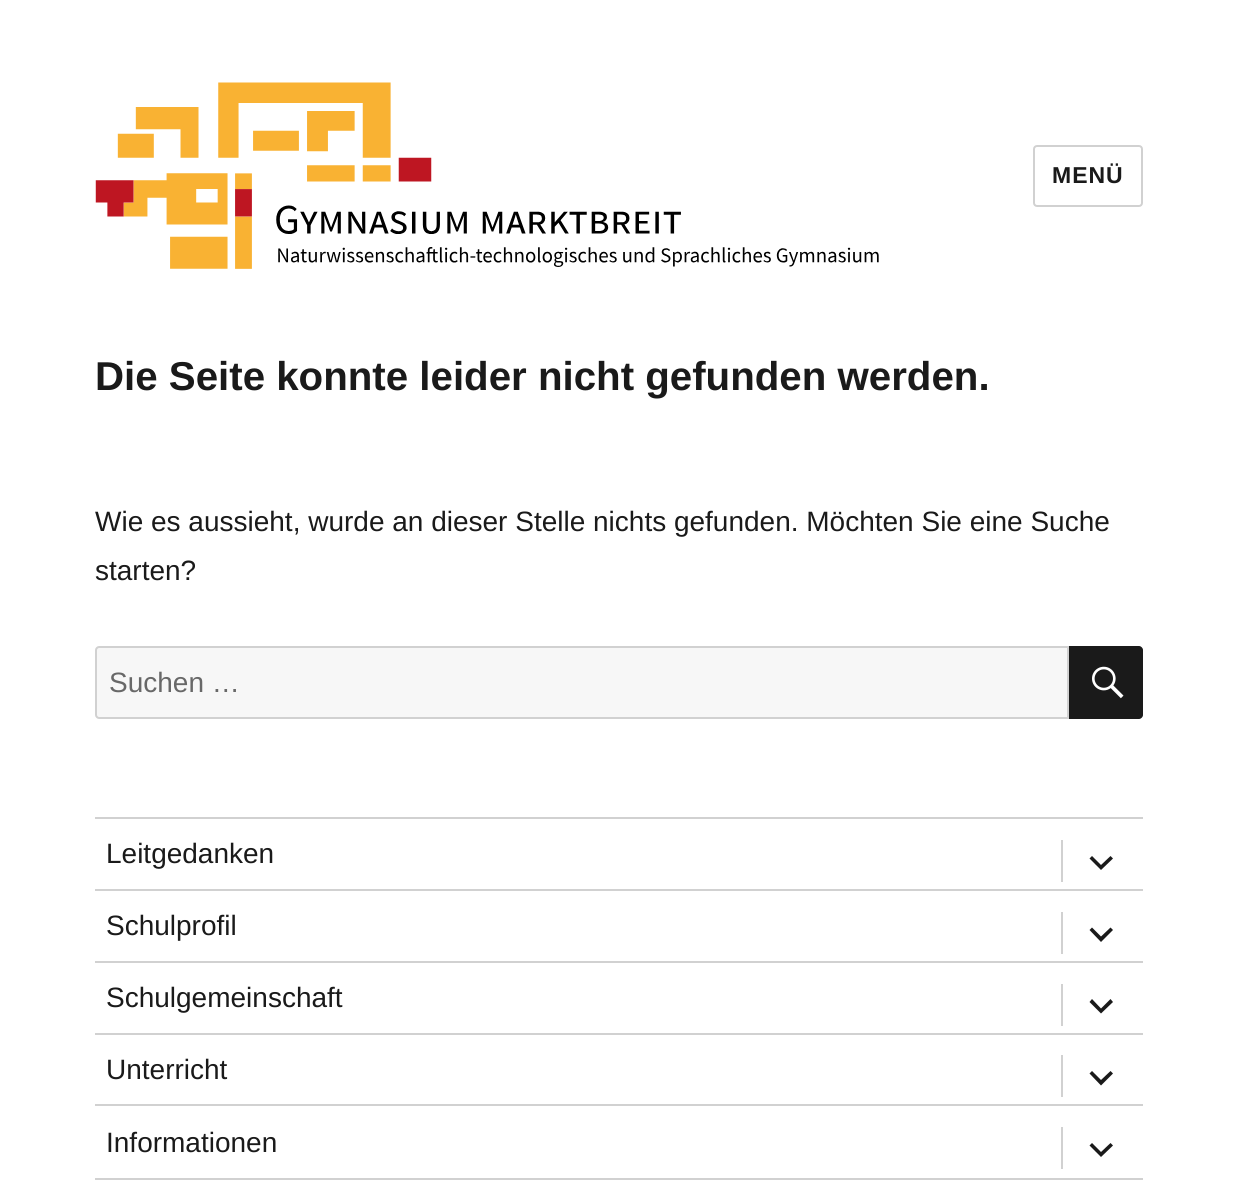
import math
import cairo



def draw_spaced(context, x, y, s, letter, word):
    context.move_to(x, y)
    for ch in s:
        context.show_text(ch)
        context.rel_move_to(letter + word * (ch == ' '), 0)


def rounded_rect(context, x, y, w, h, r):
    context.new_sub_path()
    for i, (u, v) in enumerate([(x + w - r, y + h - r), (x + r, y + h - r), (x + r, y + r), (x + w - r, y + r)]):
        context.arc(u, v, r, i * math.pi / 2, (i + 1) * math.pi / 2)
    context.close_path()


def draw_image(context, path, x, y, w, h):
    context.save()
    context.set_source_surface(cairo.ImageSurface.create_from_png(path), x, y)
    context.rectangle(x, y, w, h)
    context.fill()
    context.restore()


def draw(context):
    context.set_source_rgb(1, 1, 1)
    context.paint()
    draw_image(context, "images/1.png", 95, 82, 784, 187)
    rounded_rect(context, 1034, 146, 108, 60, 3)
    context.set_source_rgb(209 / 255, 209 / 255, 209 / 255)
    context.stroke()
    context.set_source_rgb(247 / 255, 247 / 255, 247 / 255)
    context.new_path()
    context.move_to(99, 647)
    context.line_to(1068, 647)
    context.line_to(1068, 718)
    context.line_to(99, 718)
    context.curve_to(97.5, 718, 96, 716.5, 96, 715)
    context.line_to(96, 650)
    context.curve_to(96, 648.5, 97.5, 647, 99, 647)
    context.close_path()
    context.fill_preserve()
    context.set_source_rgb(209 / 255, 209 / 255, 209 / 255)
    context.stroke()
    context.set_source_rgb(26 / 255, 26 / 255, 26 / 255)
    context.new_path()
    context.move_to(1069, 646)
    context.line_to(1139, 646)
    context.curve_to(1141, 646, 1143, 648, 1143, 650)
    context.line_to(1143, 715)
    context.curve_to(1143, 717, 1141, 719, 1139, 719)
    context.line_to(1069, 719)
    context.close_path()
    context.fill()
    draw_image(context, "images/2.png", 1092, 666, 32, 33)
    context.set_source_rgb(209 / 255, 209 / 255, 209 / 255)
    context.rectangle(95, 817, 1048, 2)
    context.fill()
    context.rectangle(1061, 840, 2, 42)
    context.fill()
    context.set_source_rgb(26 / 255, 26 / 255, 26 / 255)
    context.new_path()
    context.move_to(1110.5, 856)
    context.line_to(1113, 858.5)
    context.line_to(1101, 870)
    context.line_to(1089.5, 858.5)
    context.line_to(1092, 856)
    context.line_to(1101, 865)
    context.close_path()
    context.fill()
    context.set_source_rgb(209 / 255, 209 / 255, 209 / 255)
    context.rectangle(95, 889, 1048, 2)
    context.fill()
    context.rectangle(1061, 912, 2, 42)
    context.fill()
    context.set_source_rgb(26 / 255, 26 / 255, 26 / 255)
    context.new_path()
    context.move_to(1110.5, 927.5)
    context.line_to(1113, 930)
    context.line_to(1101, 942)
    context.line_to(1089.5, 930)
    context.line_to(1092, 927.5)
    context.line_to(1101, 936.5)
    context.close_path()
    context.fill()
    context.set_source_rgb(209 / 255, 209 / 255, 209 / 255)
    context.rectangle(95, 961, 1048, 2)
    context.fill()
    context.rectangle(1061, 984, 2, 42)
    context.fill()
    context.set_source_rgb(26 / 255, 26 / 255, 26 / 255)
    context.new_path()
    context.move_to(1110.5, 999)
    context.line_to(1113, 1002)
    context.line_to(1101, 1013.5)
    context.line_to(1089.5, 1002)
    context.line_to(1092, 999)
    context.line_to(1101, 1008.5)
    context.close_path()
    context.fill()
    context.set_source_rgb(209 / 255, 209 / 255, 209 / 255)
    context.rectangle(95, 1033, 1048, 2)
    context.fill()
    context.rectangle(1061, 1055, 2, 42)
    context.fill()
    context.set_source_rgb(26 / 255, 26 / 255, 26 / 255)
    context.new_path()
    context.move_to(1110.5, 1071)
    context.line_to(1113, 1073.5)
    context.line_to(1101, 1085.5)
    context.line_to(1089.5, 1073.5)
    context.line_to(1092, 1071)
    context.line_to(1101, 1080)
    context.close_path()
    context.fill()
    context.set_source_rgb(209 / 255, 209 / 255, 209 / 255)
    context.rectangle(95, 1104, 1048, 2)
    context.fill()
    context.rectangle(1061, 1127, 2, 42)
    context.fill()
    context.set_source_rgb(26 / 255, 26 / 255, 26 / 255)
    context.new_path()
    context.move_to(1110.5, 1143)
    context.line_to(1113, 1145.5)
    context.line_to(1101, 1157)
    context.line_to(1089.5, 1145.5)
    context.line_to(1092, 1143)
    context.line_to(1101, 1152)
    context.close_path()
    context.fill()
    context.set_source_rgb(209 / 255, 209 / 255, 209 / 255)
    context.rectangle(95, 1178, 1048, 2)
    context.fill()
    context.select_font_face("Liberation Sans", cairo.FontSlant.NORMAL, cairo.FontWeight.BOLD)
    context.set_font_size(23)
    context.set_source_rgb(26 / 255, 26 / 255, 26 / 255)
    draw_spaced(context, 1052, 183, "MENÜ", 1, 0)
    context.set_font_size(40.25)
    context.move_to(95, 390)
    context.show_text("Die Seite konnte leider nicht gefunden werden.")
    context.select_font_face("Liberation Sans")
    context.set_font_size(28)
    context.move_to(95, 531)
    context.show_text("Wie es aussieht, wurde an dieser Stelle nichts gefunden. Möchten Sie eine Suche")
    context.move_to(95, 580)
    context.show_text("starten?")
    context.set_source_rgb(104 / 255, 104 / 255, 104 / 255)
    context.move_to(109, 692)
    context.show_text("Suchen …")
    context.set_source_rgb(26 / 255, 26 / 255, 26 / 255)
    context.move_to(106, 863)
    context.show_text("Leitgedanken")
    context.move_to(106, 935)
    context.show_text("Schulprofil")
    context.move_to(106, 1007)
    context.show_text("Schulgemeinschaft")
    context.move_to(106, 1079)
    context.show_text("Unterricht")
    context.move_to(106, 1152)
    context.show_text("Informationen")


surface = cairo.ImageSurface(cairo.Format.RGB24, 1237, 1180)
context = cairo.Context(surface)
options = cairo.FontOptions()
options.set_hint_metrics(cairo.HintMetrics.OFF)
options.set_hint_style(cairo.HintStyle.NONE)
context.set_font_options(options)
context.set_miter_limit(4)
draw(context)
surface.write_to_png("out.png")
